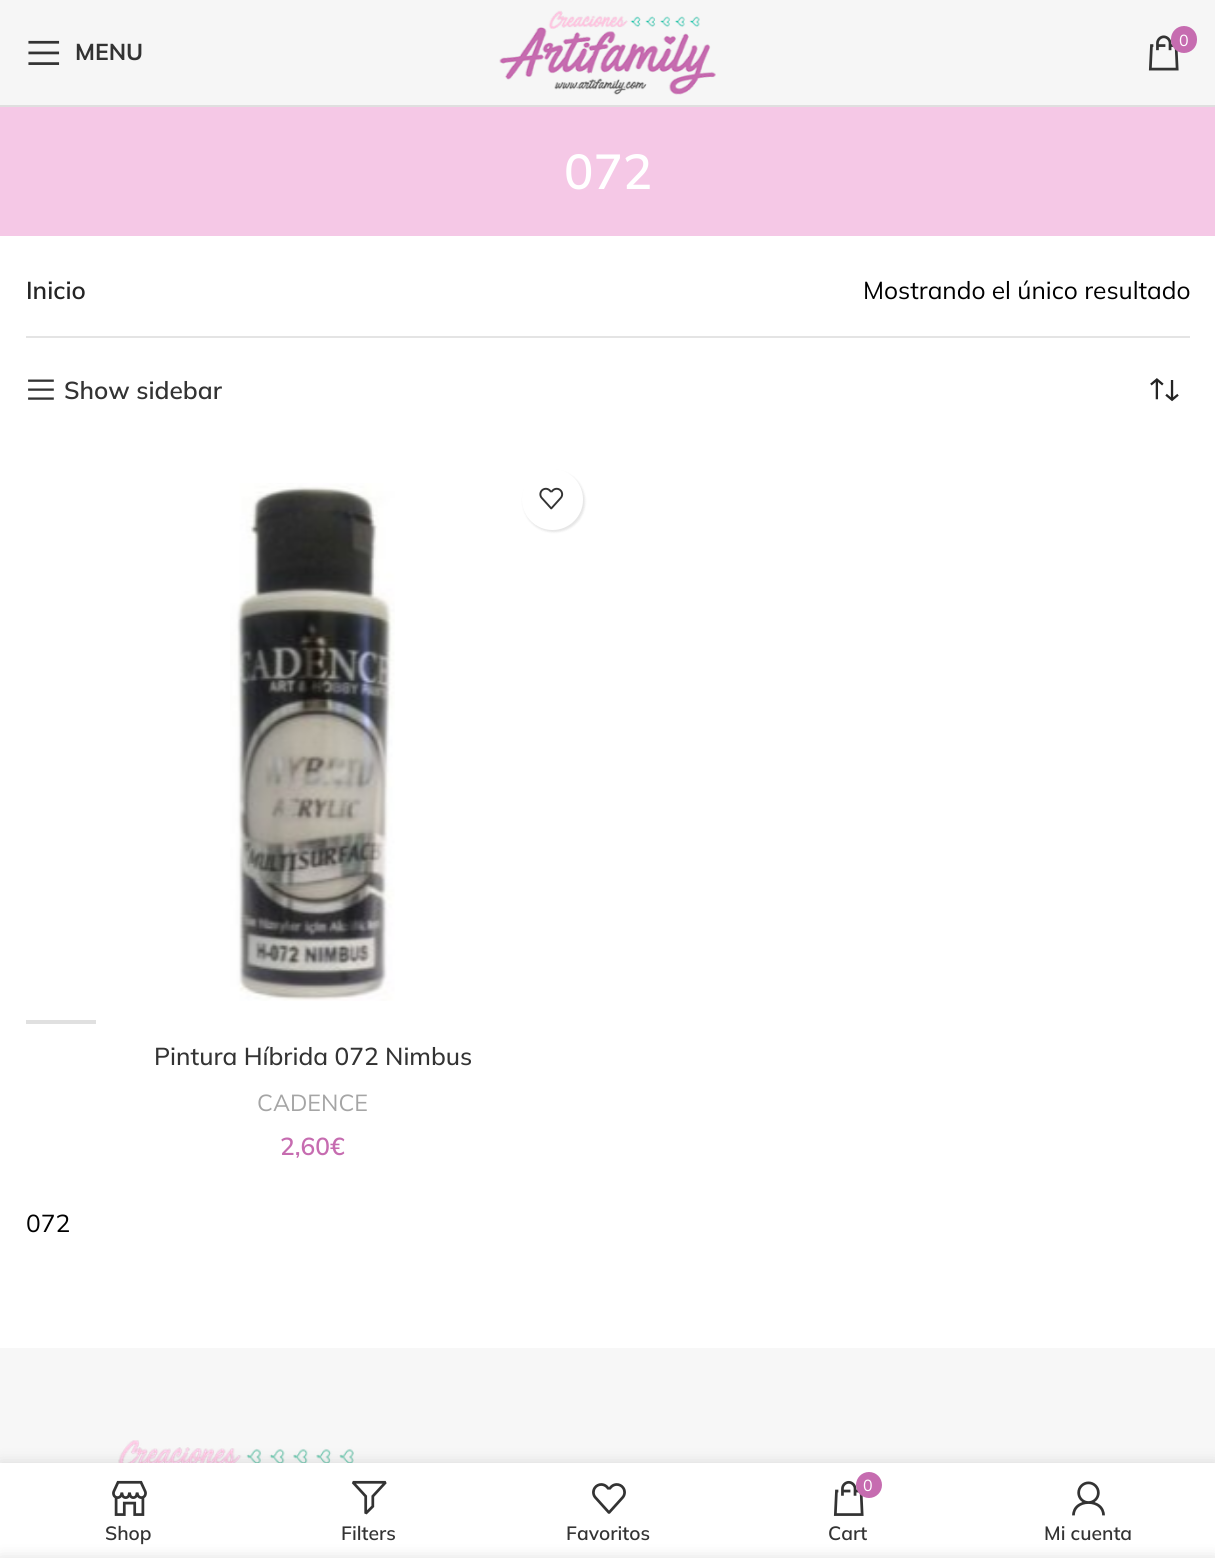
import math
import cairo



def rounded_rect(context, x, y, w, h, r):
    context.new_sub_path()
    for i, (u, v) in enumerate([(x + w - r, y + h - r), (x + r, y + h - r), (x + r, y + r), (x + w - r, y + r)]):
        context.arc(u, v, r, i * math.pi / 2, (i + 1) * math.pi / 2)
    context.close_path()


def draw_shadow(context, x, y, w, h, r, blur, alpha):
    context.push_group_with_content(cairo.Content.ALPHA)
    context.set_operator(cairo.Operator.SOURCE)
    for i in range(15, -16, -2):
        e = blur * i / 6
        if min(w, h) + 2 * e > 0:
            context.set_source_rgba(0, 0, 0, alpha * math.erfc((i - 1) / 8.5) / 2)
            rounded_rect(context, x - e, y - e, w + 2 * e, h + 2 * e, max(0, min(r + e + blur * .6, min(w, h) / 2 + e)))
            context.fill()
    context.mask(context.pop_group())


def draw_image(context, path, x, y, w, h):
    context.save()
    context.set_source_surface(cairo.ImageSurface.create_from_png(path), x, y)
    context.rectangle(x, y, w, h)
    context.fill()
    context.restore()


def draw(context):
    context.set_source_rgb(1, 1, 1)
    context.paint()
    context.set_source_rgb(246 / 255, 246 / 255, 246 / 255)
    context.rectangle(0, 0, 1215, 105)
    context.fill()
    context.set_source_rgb(223 / 255, 223 / 255, 223 / 255)
    context.rectangle(0, 105, 1215, 2)
    context.fill()
    draw_image(context, "images/1.png", 499, 10, 217, 85)
    draw_image(context, "images/2.png", 1148, 35, 31, 36)
    context.set_source_rgb(198 / 255, 108 / 255, 176 / 255)
    rounded_rect(context, 1171, 26, 26, 27, 13)
    context.fill()
    draw_image(context, "images/3.png", 28, 40, 32, 25)
    context.set_source_rgb(245 / 255, 200 / 255, 230 / 255)
    context.rectangle(0, 107, 1215, 129)
    context.fill()
    context.set_source_rgb(228 / 255, 228 / 255, 228 / 255)
    context.rectangle(26, 336, 1164, 2)
    context.fill()
    draw_image(context, "images/4.png", 28, 379, 26, 21)
    draw_image(context, "images/5.png", 1150, 378, 29, 24)
    draw_image(context, "images/6.png", 230, 483, 165, 518)
    context.set_source_rgb(0, 0, 0)
    draw_shadow(context, 523, 471, 62, 61, 30.5, 1, 0.1)
    context.set_source_rgb(1, 1, 1)
    context.arc(552.5, 499.5, 30.5, 0, 2 * math.pi)
    context.fill()
    draw_image(context, "images/7.png", 539, 487, 25, 23)
    context.set_source_rgb(224 / 255, 224 / 255, 224 / 255)
    context.rectangle(26, 1020, 70, 4)
    context.fill()
    context.set_source_rgb(247 / 255, 247 / 255, 247 / 255)
    context.rectangle(0, 1348, 1215, 115)
    context.fill()
    draw_image(context, "images/8.png", 118, 1440, 236, 23)
    context.set_source_rgb(0, 0, 0)
    draw_shadow(context, 0, 1463, 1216, 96, 0, 8, 0.12)
    context.set_source_rgb(1, 1, 1)
    context.rectangle(0, 1463, 1215, 95)
    context.fill()
    draw_image(context, "images/9.png", 112, 1480, 35, 36)
    draw_image(context, "images/10.png", 351, 1480, 36, 35)
    draw_image(context, "images/11.png", 592, 1483, 34, 31)
    draw_image(context, "images/12.png", 833, 1480, 31, 36)
    context.set_source_rgb(198 / 255, 108 / 255, 176 / 255)
    context.arc(869, 1485, 13, 0, 2 * math.pi)
    context.fill()
    draw_image(context, "images/13.png", 1072, 1481, 33, 35)
    context.set_source_rgb(0, 0, 0)
    draw_shadow(context, 0, 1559, 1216, 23, 0, 8, 0.14)
    context.select_font_face("Mulish")
    context.set_font_size(16)
    context.set_source_rgb(1, 1, 1)
    context.move_to(1179, 46)
    context.show_text("0")
    context.select_font_face("Mulish", cairo.FontSlant.NORMAL, cairo.FontWeight.BOLD)
    context.set_font_size(23)
    context.set_source_rgb(51 / 255, 51 / 255, 51 / 255)
    context.move_to(75, 60)
    context.show_text("MENU")
    context.select_font_face("Mulish SemiBold")
    context.set_font_size(49)
    context.set_source_rgb(1, 1, 1)
    context.move_to(564, 189)
    context.show_text("072")
    context.set_font_size(24.5)
    context.set_source_rgb(36 / 255, 36 / 255, 36 / 255)
    context.move_to(26, 299)
    context.show_text("Inicio")
    context.select_font_face("Mulish")
    context.set_source_rgb(0, 0, 0)
    context.move_to(863, 299)
    context.show_text("Mostrando el único resultado")
    context.select_font_face("Mulish SemiBold")
    context.set_source_rgb(51 / 255, 51 / 255, 51 / 255)
    context.move_to(64, 399)
    context.show_text("Show sidebar")
    context.select_font_face("Mulish Medium")
    context.move_to(154, 1065)
    context.show_text("Pintura Híbrida 072 Nimbus")
    context.select_font_face("Mulish")
    context.set_font_size(23.25)
    context.set_source_rgb(165 / 255, 165 / 255, 165 / 255)
    context.move_to(257, 1111)
    context.show_text("CADENCE")
    context.select_font_face("Mulish SemiBold")
    context.set_font_size(24.5)
    context.set_source_rgb(198 / 255, 108 / 255, 176 / 255)
    context.move_to(280, 1155)
    context.show_text("2,60€")
    context.select_font_face("Mulish")
    context.set_source_rgb(0, 0, 0)
    context.move_to(26, 1232)
    context.show_text("072")
    context.select_font_face("Mulish SemiBold")
    context.set_font_size(19.25)
    context.set_source_rgb(51 / 255, 51 / 255, 51 / 255)
    context.move_to(105, 1540)
    context.show_text("Shop")
    context.move_to(341, 1540)
    context.show_text("Filters")
    context.move_to(566, 1540)
    context.show_text("Favoritos")
    context.select_font_face("Mulish")
    context.set_font_size(16)
    context.set_source_rgb(1, 1, 1)
    context.move_to(863, 1491)
    context.show_text("0")
    context.select_font_face("Mulish SemiBold")
    context.set_font_size(19.25)
    context.set_source_rgb(51 / 255, 51 / 255, 51 / 255)
    context.move_to(828, 1540)
    context.show_text("Cart")
    context.move_to(1044, 1540)
    context.show_text("Mi cuenta")


surface = cairo.ImageSurface(cairo.Format.RGB24, 1215, 1558)
context = cairo.Context(surface)
options = cairo.FontOptions()
options.set_hint_metrics(cairo.HintMetrics.OFF)
options.set_hint_style(cairo.HintStyle.NONE)
context.set_font_options(options)
context.set_miter_limit(4)
draw(context)
surface.write_to_png("out.png")
